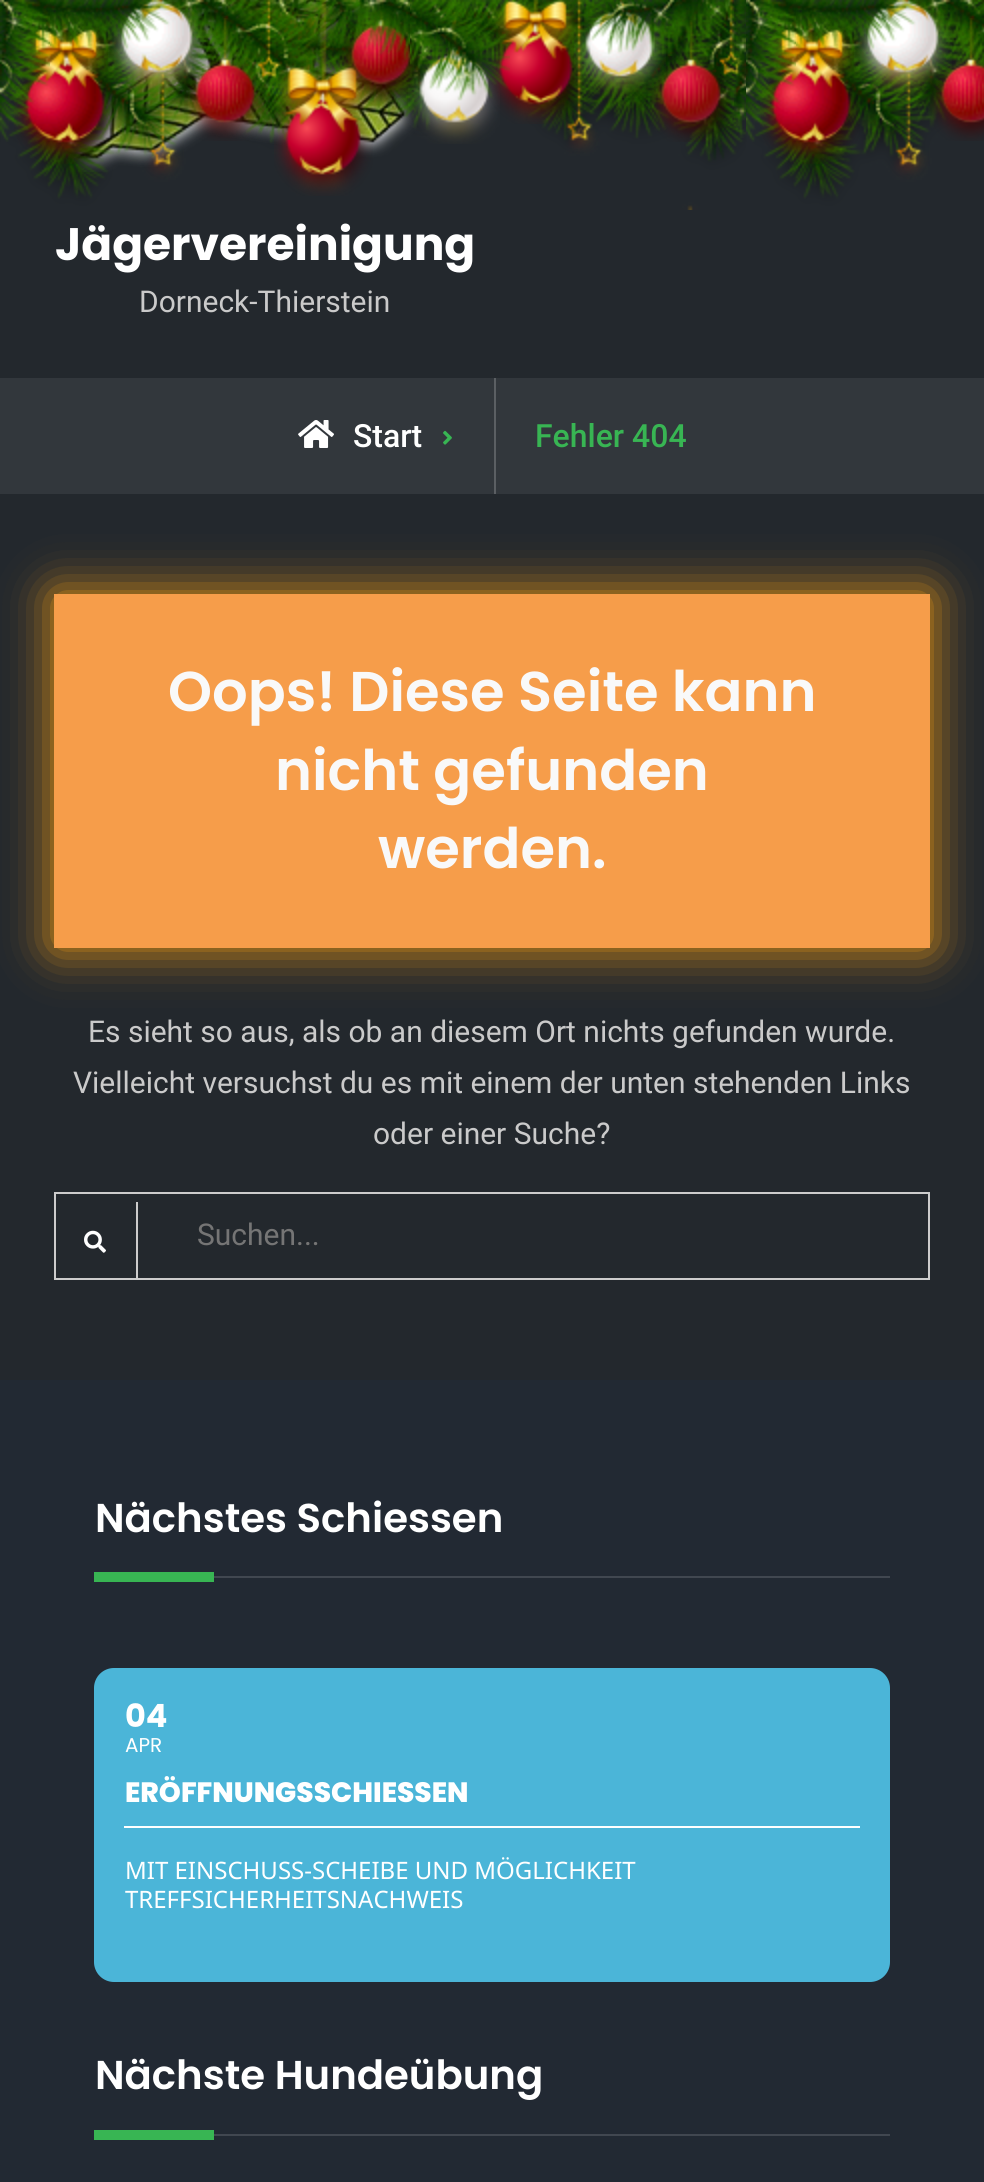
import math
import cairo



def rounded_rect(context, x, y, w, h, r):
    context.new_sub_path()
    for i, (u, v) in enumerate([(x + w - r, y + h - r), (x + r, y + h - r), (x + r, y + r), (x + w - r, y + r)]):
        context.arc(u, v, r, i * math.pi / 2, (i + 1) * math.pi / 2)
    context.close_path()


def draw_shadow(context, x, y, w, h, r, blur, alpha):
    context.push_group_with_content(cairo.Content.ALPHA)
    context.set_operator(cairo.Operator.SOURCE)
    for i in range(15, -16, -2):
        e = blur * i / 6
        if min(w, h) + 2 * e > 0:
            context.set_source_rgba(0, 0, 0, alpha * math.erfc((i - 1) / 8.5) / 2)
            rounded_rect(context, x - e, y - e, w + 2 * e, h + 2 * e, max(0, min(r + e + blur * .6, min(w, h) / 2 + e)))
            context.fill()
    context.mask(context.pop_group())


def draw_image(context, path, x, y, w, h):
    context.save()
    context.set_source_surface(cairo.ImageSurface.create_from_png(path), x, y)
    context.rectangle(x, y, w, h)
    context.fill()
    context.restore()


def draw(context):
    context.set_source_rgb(35 / 255, 40 / 255, 45 / 255)
    context.paint()
    draw_image(context, "images/21.png", 66, 0, 351, 172)
    draw_image(context, "images/1.png", 0, 0, 984, 210)
    draw_image(context, "images/3.png", 14, 0, 102, 164)
    draw_image(context, "images/2.png", 0, 0, 50, 142)
    draw_image(context, "images/5.png", 108, 0, 98, 94)
    draw_image(context, "images/4.png", 50, 0, 122, 54)
    draw_image(context, "images/6.png", 274, 0, 99, 196)
    draw_image(context, "images/7.png", 339, 0, 81, 107)
    draw_image(context, "images/13.png", 408, 12, 92, 132)
    draw_image(context, "images/8.png", 353, 0, 57, 62)
    draw_image(context, "images/10.png", 487, 0, 96, 124)
    draw_image(context, "images/9.png", 410, 0, 100, 101)
    draw_image(context, "images/11.png", 574, 0, 92, 98)
    draw_image(context, "images/12.png", 184, 18, 81, 123)
    draw_image(context, "images/16.png", 650, 20, 81, 122)
    draw_image(context, "images/14.png", 578, 0, 156, 56)
    draw_image(context, "images/15.png", 734, 0, 12, 138)
    draw_image(context, "images/17.png", 760, 0, 100, 164)
    draw_image(context, "images/2.png", 746, 0, 50, 142)
    draw_image(context, "images/19.png", 854, 0, 98, 96)
    draw_image(context, "images/18.png", 796, 0, 122, 54)
    draw_image(context, "images/20.png", 930, 18, 54, 123)
    context.set_source_rgb(50 / 255, 55 / 255, 60 / 255)
    context.rectangle(0, 378, 984, 116)
    context.fill()
    context.set_source_rgb(91 / 255, 95 / 255, 99 / 255)
    context.rectangle(494, 378, 2, 116)
    context.fill()
    draw_image(context, "images/22.png", 298, 420, 36, 28)
    draw_image(context, "images/23.png", 443, 430, 9, 15)
    context.set_source_rgb(243 / 255, 156 / 255, 18 / 255)
    draw_shadow(context, 54, 594, 876, 354, 0, 24, 1)
    context.set_source_rgb(246 / 255, 157 / 255, 74 / 255)
    context.rectangle(54, 594, 876, 354)
    context.fill()
    context.rectangle(55, 1193, 874, 86)
    context.set_source_rgb(204 / 255, 204 / 255, 204 / 255)
    context.stroke()
    context.rectangle(136, 1202, 2, 78)
    context.fill()
    draw_image(context, "images/24.png", 84, 1230, 22, 23)
    context.set_source_rgb(34 / 255, 41 / 255, 51 / 255)
    context.rectangle(0, 1380, 984, 802)
    context.fill()
    context.set_source_rgb(65 / 255, 71 / 255, 80 / 255)
    context.rectangle(214, 1576, 676, 2)
    context.fill()
    context.set_source_rgb(56 / 255, 181 / 255, 83 / 255)
    context.rectangle(94, 1572, 120, 10)
    context.fill()
    context.set_source_rgb(75 / 255, 181 / 255, 216 / 255)
    rounded_rect(context, 94, 1668, 796, 314, 20)
    context.fill()
    context.set_source_rgb(1, 1, 1)
    context.rectangle(124, 1826, 736, 2)
    context.fill()
    context.set_source_rgb(65 / 255, 71 / 255, 80 / 255)
    context.rectangle(214, 2134, 676, 2)
    context.fill()
    context.set_source_rgb(56 / 255, 181 / 255, 83 / 255)
    context.rectangle(94, 2130, 120, 10)
    context.fill()
    context.select_font_face("Poppins", cairo.FontSlant.NORMAL, cairo.FontWeight.BOLD)
    context.set_font_size(45.5)
    context.set_source_rgb(1, 1, 1)
    context.move_to(55, 260)
    context.show_text("Jägervereinigung")
    context.select_font_face("Roboto")
    context.set_font_size(30)
    context.set_source_rgb(202 / 255, 202 / 255, 202 / 255)
    context.move_to(139, 312)
    context.show_text("Dorneck-Thierstein")
    context.select_font_face("Roboto Medium")
    context.set_font_size(32)
    context.set_source_rgb(1, 1, 1)
    context.move_to(353, 447)
    context.show_text("Start")
    context.set_source_rgb(56 / 255, 181 / 255, 83 / 255)
    context.move_to(535, 447)
    context.show_text("Fehler 404")
    context.select_font_face("Poppins SemiBold")
    context.set_font_size(56)
    context.set_source_rgb(249 / 255, 249 / 255, 249 / 255)
    context.move_to(168, 711)
    context.show_text("Oops! Diese Seite kann")
    context.move_to(275, 790)
    context.show_text("nicht gefunden")
    context.move_to(378, 868)
    context.show_text("werden.")
    context.select_font_face("Roboto")
    context.set_font_size(30)
    context.set_source_rgb(202 / 255, 202 / 255, 202 / 255)
    context.move_to(88, 1042)
    context.show_text("Es sieht so aus, als ob an diesem Ort nichts gefunden wurde.")
    context.move_to(73, 1093)
    context.show_text("Vielleicht versuchst du es mit einem der unten stehenden Links")
    context.move_to(373, 1144)
    context.show_text("oder einer Suche?")
    context.set_source_rgb(117 / 255, 117 / 255, 117 / 255)
    context.move_to(197, 1245)
    context.show_text("Suchen...")
    context.select_font_face("Poppins SemiBold")
    context.set_font_size(40.25)
    context.set_source_rgb(1, 1, 1)
    context.move_to(95, 1532)
    context.show_text("Nächstes Schiessen")
    context.select_font_face("Poppins", cairo.FontSlant.NORMAL, cairo.FontWeight.BOLD)
    context.set_font_size(32)
    context.move_to(125, 1727)
    context.show_text("04")
    context.select_font_face("Poppins")
    context.set_font_size(20)
    context.move_to(125, 1752)
    context.show_text("APR")
    context.select_font_face("Poppins ExtraBold")
    context.set_font_size(28)
    context.move_to(125, 1802)
    context.show_text("ERÖFFNUNGSSCHIESSEN")
    context.select_font_face("Noto Sans")
    context.set_font_size(24)
    context.move_to(125, 1879)
    context.show_text("MIT EINSCHUSS-SCHEIBE UND MÖGLICHKEIT")
    context.move_to(125, 1908)
    context.show_text("TREFFSICHERHEITSNACHWEIS")
    context.select_font_face("Poppins SemiBold")
    context.set_font_size(40.25)
    context.move_to(95, 2089)
    context.show_text("Nächste Hundeübung")


surface = cairo.ImageSurface(cairo.Format.RGB24, 984, 2182)
context = cairo.Context(surface)
options = cairo.FontOptions()
options.set_hint_metrics(cairo.HintMetrics.OFF)
options.set_hint_style(cairo.HintStyle.NONE)
context.set_font_options(options)
context.set_miter_limit(4)
draw(context)
surface.write_to_png("out.png")
